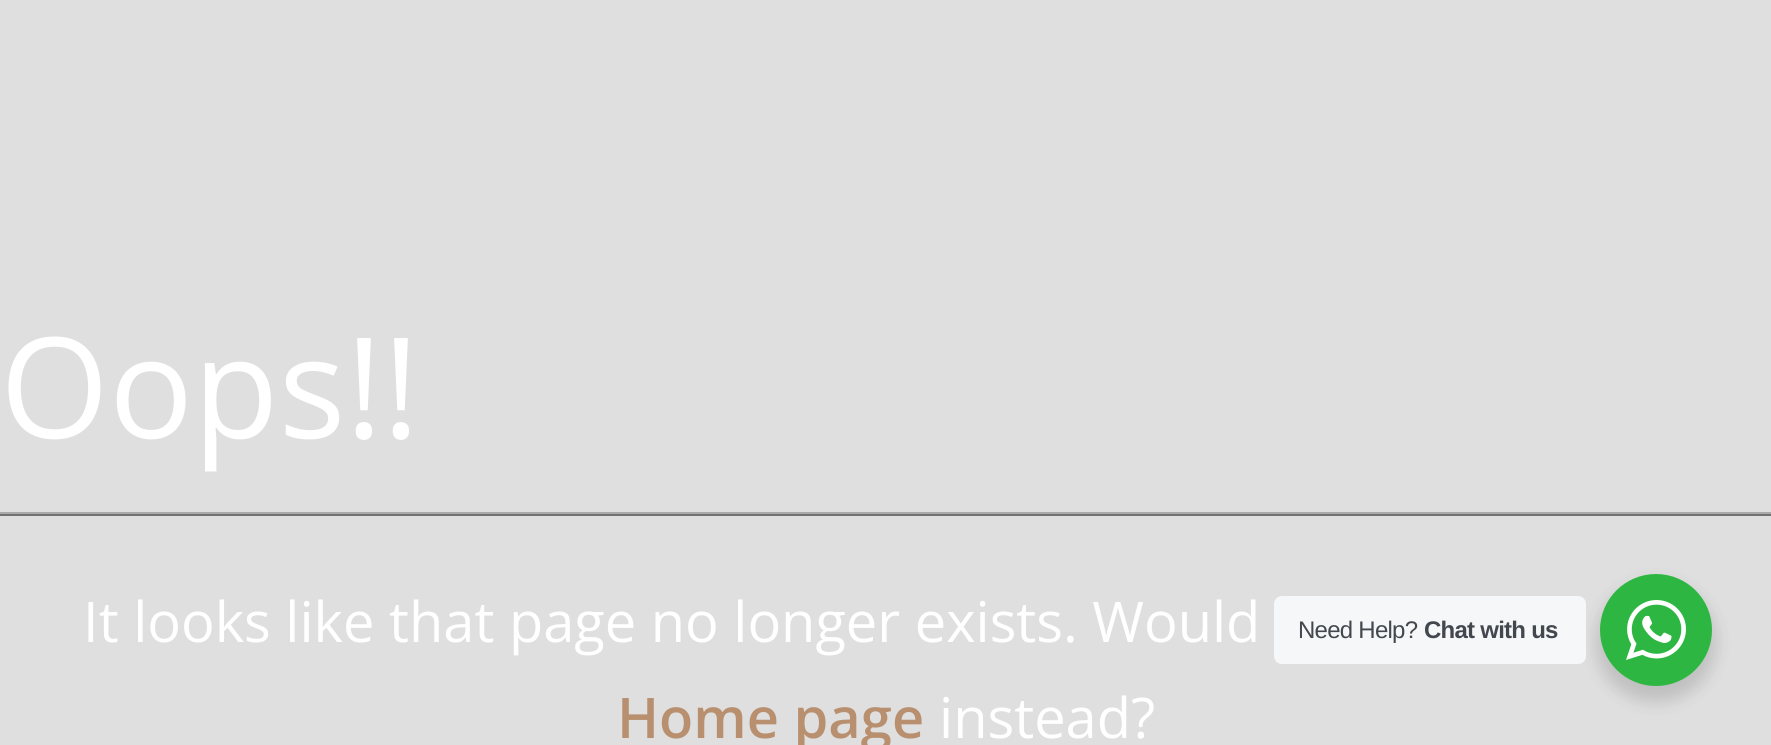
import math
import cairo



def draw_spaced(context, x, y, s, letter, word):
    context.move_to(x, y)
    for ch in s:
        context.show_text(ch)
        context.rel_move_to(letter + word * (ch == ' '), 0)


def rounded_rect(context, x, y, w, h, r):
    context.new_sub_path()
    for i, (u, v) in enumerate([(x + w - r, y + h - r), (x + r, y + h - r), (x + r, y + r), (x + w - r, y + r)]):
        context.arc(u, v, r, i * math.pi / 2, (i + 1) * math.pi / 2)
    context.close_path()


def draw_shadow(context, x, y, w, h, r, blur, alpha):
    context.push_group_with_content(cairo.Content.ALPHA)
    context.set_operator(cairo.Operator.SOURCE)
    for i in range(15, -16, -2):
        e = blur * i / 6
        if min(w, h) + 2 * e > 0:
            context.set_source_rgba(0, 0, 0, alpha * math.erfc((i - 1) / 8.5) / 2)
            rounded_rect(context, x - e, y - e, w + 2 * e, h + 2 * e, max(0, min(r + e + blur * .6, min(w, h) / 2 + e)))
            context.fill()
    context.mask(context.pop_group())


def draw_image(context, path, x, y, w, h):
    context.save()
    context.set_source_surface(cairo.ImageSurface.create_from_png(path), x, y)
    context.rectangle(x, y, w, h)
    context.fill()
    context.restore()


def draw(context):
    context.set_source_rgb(223 / 255, 223 / 255, 223 / 255)
    context.paint()
    context.set_source_rgb(114 / 255, 114 / 255, 114 / 255)
    context.rectangle(0, 514, 1771, 2)
    context.fill()
    context.set_source_rgb(170 / 255, 170 / 255, 170 / 255)
    context.rectangle(0, 512, 1771, 2)
    context.fill()
    context.set_source_rgb(0, 0, 0)
    draw_shadow(context, 1596, 582, 120, 120, 60, 8, 0.14)
    context.set_source_rgb(245 / 255, 247 / 255, 249 / 255)
    rounded_rect(context, 1274, 596, 312, 68, 8)
    context.fill()
    context.set_source_rgb(45 / 255, 183 / 255, 66 / 255)
    context.arc(1656, 630, 56, 0, 2 * math.pi)
    context.fill()
    draw_image(context, "images/1.png", 1626, 600, 60, 60)
    context.select_font_face("Open Sans")
    context.set_font_size(140)
    context.set_source_rgb(1, 1, 1)
    context.move_to(0, 438)
    context.show_text("Oops!!")
    context.set_font_size(56)
    context.move_to(83, 642)
    context.show_text("It looks like that page no longer exists. Would")
    context.select_font_face("Open Sans SemiBold")
    context.set_source_rgb(185 / 255, 144 / 255, 111 / 255)
    context.move_to(617, 738)
    context.show_text("Home page")
    context.select_font_face("Open Sans")
    context.set_source_rgb(1, 1, 1)
    context.move_to(939, 738)
    context.show_text("instead?")
    context.select_font_face("Liberation Sans")
    context.set_font_size(24)
    context.set_source_rgb(67 / 255, 71 / 255, 78 / 255)
    draw_spaced(context, 1298, 638, "Need Help?", -0.75, 0)
    context.select_font_face("Liberation Sans", cairo.FontSlant.NORMAL, cairo.FontWeight.BOLD)
    draw_spaced(context, 1424, 638, "Chat with us", -0.75, 0)


surface = cairo.ImageSurface(cairo.Format.RGB24, 1771, 745)
context = cairo.Context(surface)
options = cairo.FontOptions()
options.set_hint_metrics(cairo.HintMetrics.OFF)
options.set_hint_style(cairo.HintStyle.NONE)
context.set_font_options(options)
context.set_miter_limit(4)
draw(context)
surface.write_to_png("out.png")
